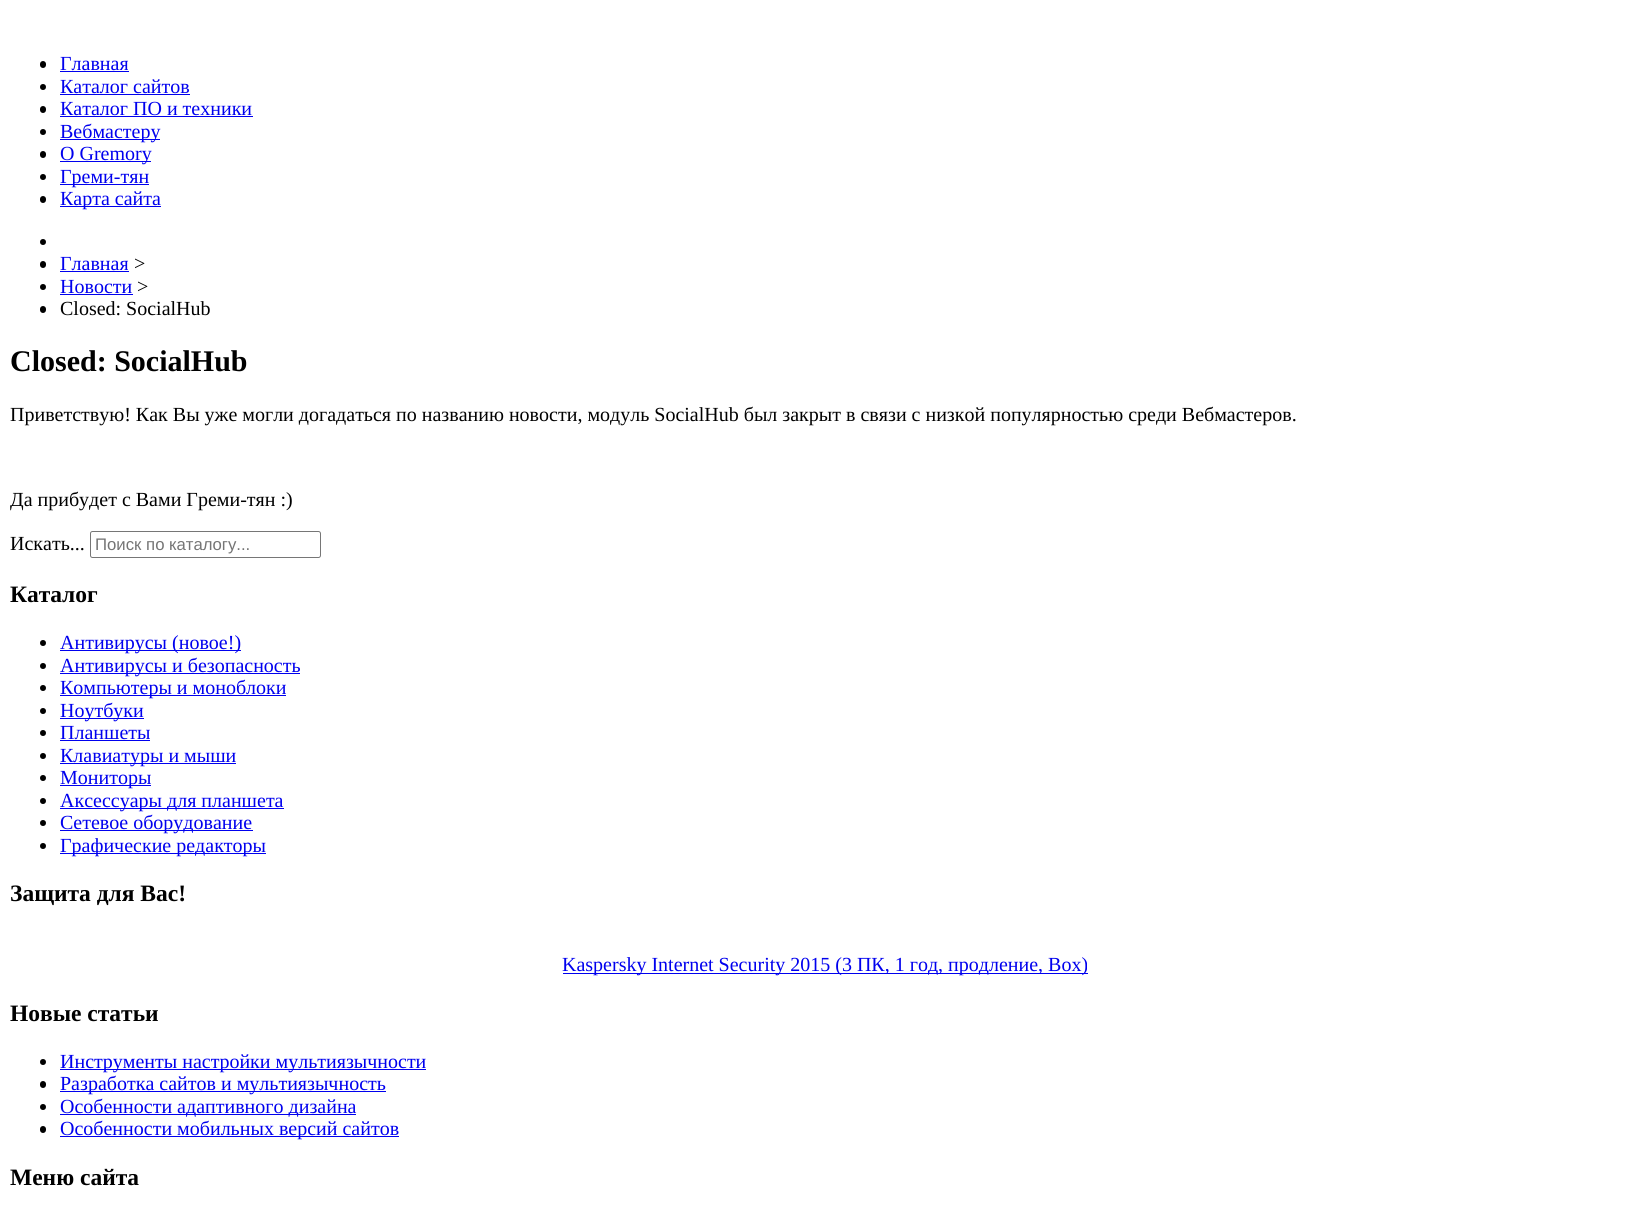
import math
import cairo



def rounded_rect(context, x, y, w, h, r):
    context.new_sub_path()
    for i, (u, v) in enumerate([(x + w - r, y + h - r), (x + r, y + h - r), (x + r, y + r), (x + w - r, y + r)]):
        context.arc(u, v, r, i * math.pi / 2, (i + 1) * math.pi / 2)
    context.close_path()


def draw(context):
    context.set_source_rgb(1, 1, 1)
    context.paint()
    context.set_source_rgb(0, 0, 0)
    rounded_rect(context, 40, 61, 6, 7, 3)
    context.fill()
    context.set_source_rgb(0, 0, 238 / 255)
    context.rectangle(60, 71, 69, 1)
    context.fill()
    context.set_source_rgb(0, 0, 0)
    context.arc(43, 87, 3, 0, 2 * math.pi)
    context.fill()
    context.set_source_rgb(0, 0, 238 / 255)
    context.rectangle(60, 94, 130, 1)
    context.fill()
    context.set_source_rgb(0, 0, 0)
    rounded_rect(context, 40, 106, 6, 7, 3)
    context.fill()
    context.set_source_rgb(0, 0, 238 / 255)
    context.rectangle(60, 116, 193, 1)
    context.fill()
    context.set_source_rgb(0, 0, 0)
    context.arc(43, 132, 3, 0, 2 * math.pi)
    context.fill()
    context.set_source_rgb(0, 0, 238 / 255)
    context.rectangle(60, 139, 100, 1)
    context.fill()
    context.set_source_rgb(0, 0, 0)
    rounded_rect(context, 40, 151, 6, 7, 3)
    context.fill()
    context.set_source_rgb(0, 0, 238 / 255)
    context.rectangle(60, 161, 91, 1)
    context.fill()
    context.set_source_rgb(0, 0, 0)
    context.arc(43, 177, 3, 0, 2 * math.pi)
    context.fill()
    context.set_source_rgb(0, 0, 238 / 255)
    context.rectangle(60, 184, 89, 1)
    context.fill()
    context.set_source_rgb(0, 0, 0)
    rounded_rect(context, 40, 196, 6, 7, 3)
    context.fill()
    context.set_source_rgb(0, 0, 238 / 255)
    context.rectangle(60, 206, 101, 1)
    context.fill()
    context.set_source_rgb(0, 0, 0)
    context.arc(43, 242, 3, 0, 2 * math.pi)
    context.fill()
    rounded_rect(context, 40, 261, 6, 7, 3)
    context.fill()
    context.set_source_rgb(0, 0, 238 / 255)
    context.rectangle(60, 271, 69, 1)
    context.fill()
    context.set_source_rgb(0, 0, 0)
    context.arc(43, 287, 3, 0, 2 * math.pi)
    context.fill()
    context.set_source_rgb(0, 0, 238 / 255)
    context.rectangle(60, 294, 73, 1)
    context.fill()
    context.set_source_rgb(0, 0, 0)
    rounded_rect(context, 40, 306, 6, 7, 3)
    context.fill()
    rounded_rect(context, 90.5, 531.5, 230, 26, 2)
    context.set_source_rgb(118 / 255, 118 / 255, 118 / 255)
    context.set_line_width(1)
    context.stroke()
    context.set_source_rgb(0, 0, 0)
    context.arc(43, 643, 3, 0, 2 * math.pi)
    context.fill()
    context.set_source_rgb(0, 0, 238 / 255)
    context.rectangle(60, 650, 181, 1)
    context.fill()
    context.set_source_rgb(0, 0, 0)
    context.arc(43, 666, 3, 0, 2 * math.pi)
    context.fill()
    context.set_source_rgb(0, 0, 238 / 255)
    context.rectangle(60, 673, 240, 1)
    context.fill()
    context.set_source_rgb(0, 0, 0)
    context.arc(43, 688, 3, 0, 2 * math.pi)
    context.fill()
    context.set_source_rgb(0, 0, 238 / 255)
    context.rectangle(60, 695, 226, 1)
    context.fill()
    context.set_source_rgb(0, 0, 0)
    context.arc(43, 711, 3, 0, 2 * math.pi)
    context.fill()
    context.set_source_rgb(0, 0, 238 / 255)
    context.rectangle(60, 718, 84, 1)
    context.fill()
    context.set_source_rgb(0, 0, 0)
    context.arc(43, 733, 3, 0, 2 * math.pi)
    context.fill()
    context.set_source_rgb(0, 0, 238 / 255)
    context.rectangle(60, 740, 90, 1)
    context.fill()
    context.set_source_rgb(0, 0, 0)
    context.arc(43, 756, 3, 0, 2 * math.pi)
    context.fill()
    context.set_source_rgb(0, 0, 238 / 255)
    context.rectangle(60, 763, 176, 1)
    context.fill()
    context.set_source_rgb(0, 0, 0)
    context.arc(43, 778, 3, 0, 2 * math.pi)
    context.fill()
    context.set_source_rgb(0, 0, 238 / 255)
    context.rectangle(60, 785, 91, 1)
    context.fill()
    context.set_source_rgb(0, 0, 0)
    context.arc(43, 801, 3, 0, 2 * math.pi)
    context.fill()
    context.set_source_rgb(0, 0, 238 / 255)
    context.rectangle(60, 808, 224, 1)
    context.fill()
    context.set_source_rgb(0, 0, 0)
    context.arc(43, 823, 3, 0, 2 * math.pi)
    context.fill()
    context.set_source_rgb(0, 0, 238 / 255)
    context.rectangle(60, 830, 193, 1)
    context.fill()
    context.set_source_rgb(0, 0, 0)
    context.arc(43, 846, 3, 0, 2 * math.pi)
    context.fill()
    context.set_source_rgb(0, 0, 238 / 255)
    context.rectangle(60, 853, 206, 1)
    context.fill()
    context.rectangle(563, 973, 525, 1)
    context.fill()
    context.set_source_rgb(0, 0, 0)
    context.arc(43, 1062, 3, 0, 2 * math.pi)
    context.fill()
    context.set_source_rgb(0, 0, 238 / 255)
    context.rectangle(60, 1069, 366, 1)
    context.fill()
    context.set_source_rgb(0, 0, 0)
    rounded_rect(context, 40, 1081, 6, 7, 3)
    context.fill()
    context.set_source_rgb(0, 0, 238 / 255)
    context.rectangle(60, 1091, 326, 1)
    context.fill()
    context.set_source_rgb(0, 0, 0)
    context.arc(43, 1107, 3, 0, 2 * math.pi)
    context.fill()
    context.set_source_rgb(0, 0, 238 / 255)
    context.rectangle(60, 1114, 296, 1)
    context.fill()
    context.set_source_rgb(0, 0, 0)
    rounded_rect(context, 40, 1126, 6, 7, 3)
    context.fill()
    context.set_source_rgb(0, 0, 238 / 255)
    context.rectangle(60, 1136, 339, 1)
    context.fill()
    context.select_font_face("Liberation Serif")
    context.set_font_size(20)
    context.move_to(60, 70)
    context.show_text("Главная")
    context.move_to(60, 93)
    context.show_text("Каталог сайтов")
    context.move_to(60, 115)
    context.show_text("Каталог ПО и техники")
    context.move_to(60, 138)
    context.show_text("Вебмастеру")
    context.move_to(60, 160)
    context.show_text("О Gremory")
    context.move_to(60, 183)
    context.show_text("Греми-тян")
    context.move_to(60, 205)
    context.show_text("Карта сайта")
    context.move_to(60, 270)
    context.show_text("Главная")
    context.set_source_rgb(0, 0, 0)
    context.move_to(134, 270)
    context.show_text(">")
    context.set_source_rgb(0, 0, 238 / 255)
    context.move_to(60, 293)
    context.show_text("Новости")
    context.set_source_rgb(0, 0, 0)
    context.move_to(137, 293)
    context.show_text(">")
    context.move_to(60, 315)
    context.show_text("Closed: SocialHub")
    context.select_font_face("Liberation Serif", cairo.FontSlant.NORMAL, cairo.FontWeight.BOLD)
    context.set_font_size(30)
    context.move_to(10, 371)
    context.show_text("Closed: SocialHub")
    context.select_font_face("Liberation Serif")
    context.set_font_size(20)
    context.move_to(10, 421)
    context.show_text("Приветствую! Как Вы уже могли догадаться по названию новости, модуль SocialHub был закрыт в связи с низкой популярностью среди Вебмастеров.")
    context.move_to(10, 506)
    context.show_text("Да прибудет с Вами Греми-тян :)")
    context.move_to(10, 550)
    context.show_text("Искать...")
    context.select_font_face("Liberation Sans")
    context.set_font_size(16.75)
    context.set_source_rgb(117 / 255, 117 / 255, 117 / 255)
    context.move_to(95, 550)
    context.show_text("Поиск по каталогу...")
    context.select_font_face("Liberation Serif", cairo.FontSlant.NORMAL, cairo.FontWeight.BOLD)
    context.set_font_size(23.5)
    context.set_source_rgb(0, 0, 0)
    context.move_to(10, 602)
    context.show_text("Каталог")
    context.select_font_face("Liberation Serif")
    context.set_font_size(20)
    context.set_source_rgb(0, 0, 238 / 255)
    context.move_to(60, 649)
    context.show_text("Антивирусы (новое!)")
    context.move_to(60, 672)
    context.show_text("Антивирусы и безопасность")
    context.move_to(60, 694)
    context.show_text("Компьютеры и моноблоки")
    context.move_to(60, 717)
    context.show_text("Ноутбуки")
    context.move_to(60, 739)
    context.show_text("Планшеты")
    context.move_to(60, 762)
    context.show_text("Клавиатуры и мыши")
    context.move_to(60, 784)
    context.show_text("Мониторы")
    context.move_to(60, 807)
    context.show_text("Аксессуары для планшета")
    context.move_to(60, 829)
    context.show_text("Сетевое оборудование")
    context.move_to(60, 852)
    context.show_text("Графические редакторы")
    context.select_font_face("Liberation Serif", cairo.FontSlant.NORMAL, cairo.FontWeight.BOLD)
    context.set_font_size(23.5)
    context.set_source_rgb(0, 0, 0)
    context.move_to(10, 901)
    context.show_text("Защита для Вас!")
    context.select_font_face("Liberation Serif")
    context.set_font_size(20)
    context.set_source_rgb(0, 0, 238 / 255)
    context.move_to(562, 971)
    context.show_text("Kaspersky Internet Security 2015 (3 ПК, 1 год, продление, Box)")
    context.select_font_face("Liberation Serif", cairo.FontSlant.NORMAL, cairo.FontWeight.BOLD)
    context.set_font_size(23.5)
    context.set_source_rgb(0, 0, 0)
    context.move_to(10, 1021)
    context.show_text("Новые статьи")
    context.select_font_face("Liberation Serif")
    context.set_font_size(20)
    context.set_source_rgb(0, 0, 238 / 255)
    context.move_to(60, 1068)
    context.show_text("Инструменты настройки мультиязычности")
    context.move_to(60, 1090)
    context.show_text("Разработка сайтов и мультиязычность")
    context.move_to(60, 1113)
    context.show_text("Особенности адаптивного дизайна")
    context.move_to(60, 1135)
    context.show_text("Особенности мобильных версий сайтов")
    context.select_font_face("Liberation Serif", cairo.FontSlant.NORMAL, cairo.FontWeight.BOLD)
    context.set_font_size(23.5)
    context.set_source_rgb(0, 0, 0)
    context.move_to(10, 1185)
    context.show_text("Меню сайта")


surface = cairo.ImageSurface(cairo.Format.RGB24, 1650, 1216)
context = cairo.Context(surface)
options = cairo.FontOptions()
options.set_hint_metrics(cairo.HintMetrics.OFF)
options.set_hint_style(cairo.HintStyle.NONE)
context.set_font_options(options)
context.set_miter_limit(4)
draw(context)
surface.write_to_png("out.png")
